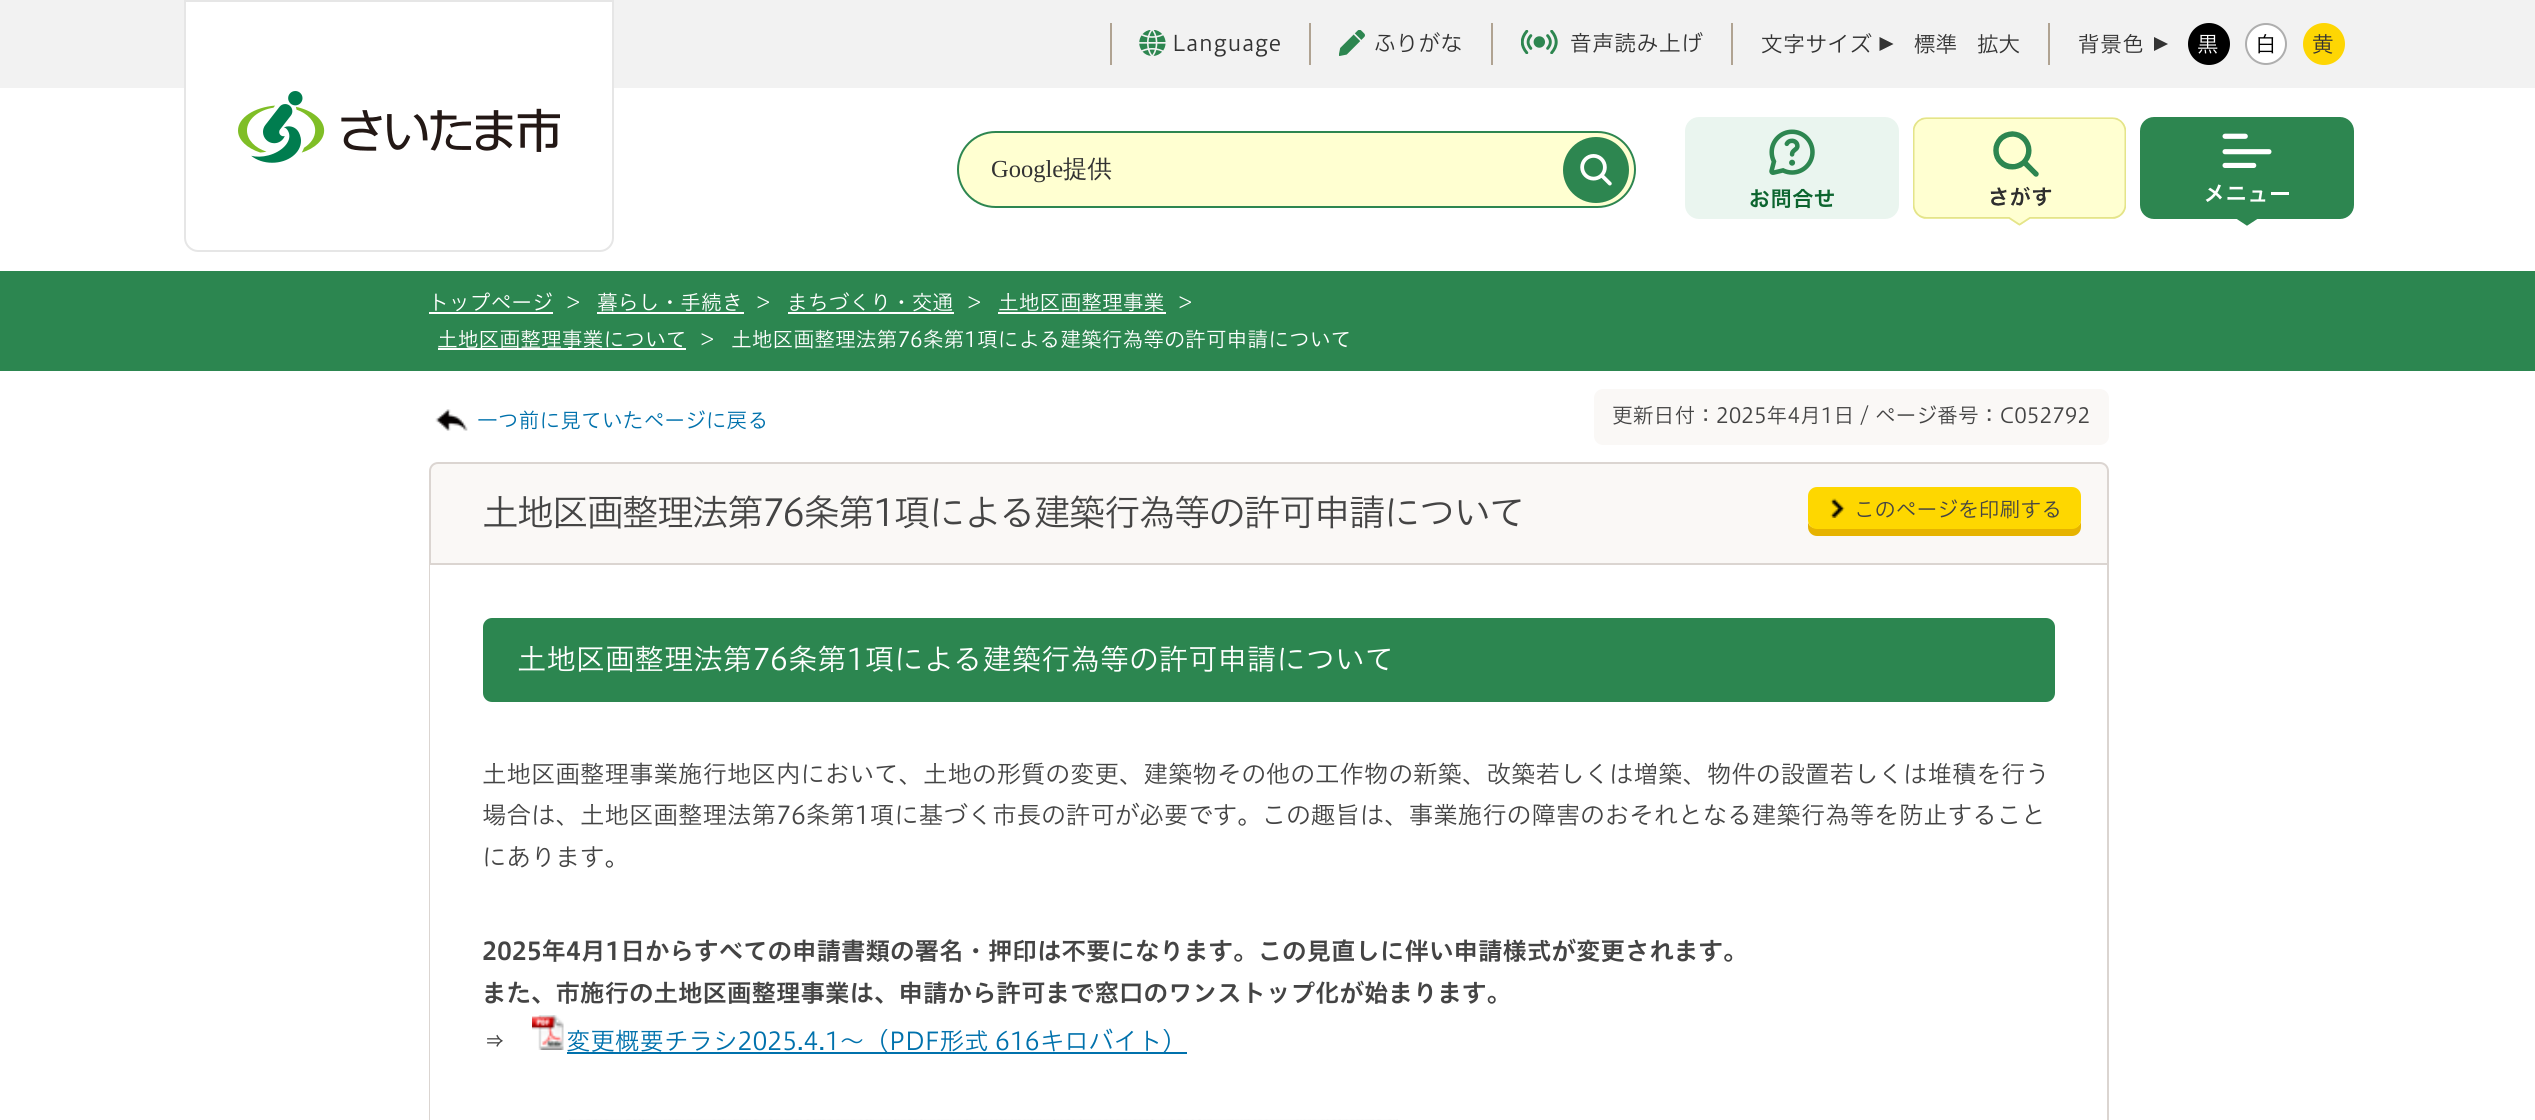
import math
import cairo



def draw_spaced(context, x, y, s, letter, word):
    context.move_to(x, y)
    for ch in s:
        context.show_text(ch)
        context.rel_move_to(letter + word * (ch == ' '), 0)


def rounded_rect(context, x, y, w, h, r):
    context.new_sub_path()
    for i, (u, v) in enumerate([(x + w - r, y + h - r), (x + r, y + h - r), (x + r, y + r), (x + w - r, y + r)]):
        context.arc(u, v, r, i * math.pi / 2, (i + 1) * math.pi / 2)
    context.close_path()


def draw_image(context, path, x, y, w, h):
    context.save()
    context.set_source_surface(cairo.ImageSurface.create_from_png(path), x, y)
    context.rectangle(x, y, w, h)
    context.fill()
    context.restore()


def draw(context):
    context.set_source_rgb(1, 1, 1)
    context.paint()
    context.set_source_rgb(242 / 255, 242 / 255, 242 / 255)
    context.rectangle(0, 0, 2535, 88)
    context.fill()
    context.set_source_rgb(1, 1, 1)
    context.new_path()
    context.move_to(185, 1)
    context.line_to(613, 1)
    context.line_to(613, 238)
    context.curve_to(613, 245, 607, 251, 600, 251)
    context.line_to(198, 251)
    context.curve_to(191, 251, 185, 245, 185, 238)
    context.close_path()
    context.fill_preserve()
    context.set_source_rgb(230 / 255, 230 / 255, 230 / 255)
    context.stroke()
    draw_image(context, "images/1.png", 238, 91, 322, 72)
    context.set_source_rgb(176 / 255, 163 / 255, 146 / 255)
    context.rectangle(1110, 23, 2, 42)
    context.fill()
    draw_image(context, "images/2.png", 1139, 30, 27, 26)
    context.rectangle(1309, 23, 2, 42)
    context.fill()
    draw_image(context, "images/3.png", 1339, 30, 26, 26)
    context.rectangle(1491, 23, 2, 42)
    context.fill()
    draw_image(context, "images/4.png", 1521, 30, 37, 24)
    context.rectangle(1731, 23, 2, 42)
    context.fill()
    context.set_source_rgb(51 / 255, 51 / 255, 51 / 255)
    context.new_path()
    context.move_to(1879.5, 51)
    context.line_to(1879.5, 37)
    context.line_to(1893.5, 44)
    context.close_path()
    context.fill()
    context.set_source_rgb(176 / 255, 163 / 255, 146 / 255)
    context.rectangle(2048, 23, 2, 42)
    context.fill()
    context.set_source_rgb(51 / 255, 51 / 255, 51 / 255)
    context.new_path()
    context.move_to(2154, 51)
    context.line_to(2154, 37)
    context.line_to(2168, 44)
    context.close_path()
    context.fill()
    context.set_source_rgb(0, 0, 0)
    context.arc(2209, 44, 20, 0, 2 * math.pi)
    context.fill_preserve()
    context.stroke()
    context.set_source_rgb(1, 1, 1)
    context.arc(2266, 44, 20, 0, 2 * math.pi)
    context.fill_preserve()
    context.set_source_rgb(174 / 255, 174 / 255, 174 / 255)
    context.stroke()
    context.set_source_rgb(254 / 255, 214 / 255, 3 / 255)
    context.arc(2324, 44, 20, 0, 2 * math.pi)
    context.fill_preserve()
    context.stroke()
    context.set_source_rgb(1, 1, 209 / 255)
    rounded_rect(context, 958, 132, 677, 75, 37.5)
    context.fill_preserve()
    context.set_source_rgb(45 / 255, 134 / 255, 80 / 255)
    context.stroke()
    context.arc(1596, 170, 33, 0, 2 * math.pi)
    context.fill()
    draw_image(context, "images/5.png", 1580, 154, 32, 32)
    draw_image(context, "images/6.png", 1685, 117, 214, 102)
    draw_image(context, "images/7.png", 1913, 117, 213, 109)
    draw_image(context, "images/8.png", 2140, 117, 214, 109)
    context.set_source_rgb(44 / 255, 134 / 255, 80 / 255)
    context.rectangle(0, 271, 2535, 100)
    context.fill()
    context.set_source_rgb(1, 1, 1)
    context.rectangle(429, 312, 124, 2)
    context.fill()
    context.rectangle(597, 312, 147, 2)
    context.fill()
    context.rectangle(788, 312, 166, 2)
    context.fill()
    context.rectangle(998, 312, 168, 2)
    context.fill()
    context.rectangle(438, 348, 248, 2)
    context.fill()
    draw_image(context, "images/9.png", 435, 409, 33, 22)
    context.set_source_rgb(250 / 255, 248 / 255, 246 / 255)
    rounded_rect(context, 1594, 389, 515, 56, 9)
    context.fill()
    context.new_path()
    context.move_to(438, 463)
    context.line_to(2100, 463)
    context.curve_to(2104.5, 463, 2108, 466.5, 2108, 471)
    context.line_to(2108, 564)
    context.line_to(430, 564)
    context.line_to(430, 471)
    context.curve_to(430, 466.5, 433.5, 463, 438, 463)
    context.close_path()
    context.fill_preserve()
    context.set_source_rgb(219 / 255, 213 / 255, 209 / 255)
    context.stroke()
    context.set_source_rgb(230 / 255, 179 / 255, 0)
    context.new_path()
    context.move_to(1808, 522)
    context.line_to(1808, 527)
    context.curve_to(1808, 532, 1812, 536, 1817, 536)
    context.line_to(2072, 536)
    context.curve_to(2077, 536, 2081, 532, 2081, 527)
    context.line_to(2081, 501)
    context.line_to(2081, 520)
    context.curve_to(2081, 525, 2077, 528, 2072, 528)
    context.line_to(1816, 528)
    context.curve_to(1812, 528, 1809, 526, 1808, 522)
    context.close_path()
    context.fill()
    context.set_source_rgb(254 / 255, 215 / 255, 0)
    rounded_rect(context, 1808, 487, 273, 42, 9)
    context.fill()
    draw_image(context, "images/10.png", 1830, 498, 15, 20)
    context.set_source_rgb(219 / 255, 213 / 255, 209 / 255)
    context.set_fill_rule(cairo.FillRule.EVEN_ODD)
    context.new_path()
    context.move_to(429, 565)
    context.line_to(2109, 565)
    context.line_to(2109, 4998)
    context.curve_to(2109, 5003, 2105, 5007, 2100, 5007)
    context.line_to(438, 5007)
    context.curve_to(433, 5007, 429, 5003, 429, 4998)
    context.close_path()
    context.move_to(430, 565)
    context.line_to(2107, 565)
    context.line_to(2107, 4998)
    context.curve_to(2107, 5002, 2104, 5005, 2100, 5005)
    context.line_to(438, 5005)
    context.curve_to(434, 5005, 430, 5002, 430, 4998)
    context.close_path()
    context.fill()
    context.set_source_rgb(44 / 255, 134 / 255, 80 / 255)
    rounded_rect(context, 483, 618, 1572, 84, 9)
    context.fill()
    draw_image(context, "images/11.png", 532, 1015, 32, 35)
    context.set_source_rgb(0, 113 / 255, 172 / 255)
    context.rectangle(567, 1052, 620, 2)
    context.fill()
    draw_image(context, "images/12.png", 569, 1119, 829, 1)
    context.select_font_face("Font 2 Light")
    context.set_font_size(21.5)
    context.set_source_rgb(51 / 255, 51 / 255, 51 / 255)
    draw_spaced(context, 1172, 51, "Language", 0.75, 0)
    draw_spaced(context, 1374, 51, "ふりがな", 0.75, 0)
    draw_spaced(context, 1570, 51, "音声読み上げ", 0.75, 0)
    draw_spaced(context, 1761, 52, "文字サイズ", 0.75, 0)
    context.move_to(1914, 52)
    context.show_text("標準")
    context.move_to(1977, 52)
    context.show_text("拡大")
    draw_spaced(context, 2078, 52, "背景色", 0.75, 0)
    context.set_source_rgb(1, 1, 1)
    context.move_to(2197, 52)
    context.show_text("黒")
    context.set_source_rgb(0, 0, 0)
    context.move_to(2255, 52)
    context.show_text("白")
    context.set_source_rgb(51 / 255, 51 / 255, 51 / 255)
    context.move_to(2312, 52)
    context.show_text("黄")
    context.select_font_face("Liberation Serif")
    context.set_font_size(24.5)
    context.move_to(991, 177)
    context.show_text("Google")
    context.select_font_face("WenQuanYi Zen Hei Medium")
    context.move_to(1063, 177)
    context.show_text("提供")
    context.select_font_face("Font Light")
    context.set_font_size(20.8)
    context.set_source_rgb(1, 1, 1)
    context.move_to(428, 310)
    context.show_text("トップページ")
    context.move_to(567, 310)
    context.show_text(">")
    context.move_to(597, 310)
    context.show_text("暮らし・手続き")
    context.move_to(757, 310)
    context.show_text(">")
    context.move_to(787, 310)
    context.show_text("まちづくり・交通")
    context.move_to(968, 310)
    context.show_text(">")
    context.move_to(998, 310)
    context.show_text("土地区画整理事業")
    context.move_to(1179, 310)
    context.show_text(">")
    context.move_to(437, 347)
    context.show_text("土地区画整理事業について")
    context.move_to(701, 347)
    context.show_text(">")
    context.move_to(731, 347)
    context.show_text("土地区画整理法第76条第1項による建築行為等の許可申請について")
    context.set_source_rgb(0, 113 / 255, 172 / 255)
    context.move_to(477, 428)
    context.show_text("一つ前に見ていたページに戻る")
    context.set_source_rgb(68 / 255, 68 / 255, 68 / 255)
    context.move_to(1612, 423)
    context.show_text("更新日付：2025年4月1日 / ページ番号：C052792")
    context.set_font_size(36.75)
    draw_spaced(context, 482, 526, "土地区画整理法第76条第1項による建築行為等の許可申請について", -1.75, 0)
    context.set_font_size(20.8)
    context.move_to(1854, 517)
    context.show_text("このページを印刷する")
    context.set_font_size(29.4)
    context.set_source_rgb(1, 1, 1)
    context.move_to(517, 670)
    context.show_text("土地区画整理法第76条第1項による建築行為等の許可申請について")
    context.set_font_size(24.5)
    context.set_source_rgb(68 / 255, 68 / 255, 68 / 255)
    context.move_to(482, 783)
    context.show_text("土地区画整理事業施行地区内において、土地の形質の変更、建築物その他の工作物の新築、改築若しくは増築、物件の設置若しくは堆積を行う")
    context.move_to(482, 824)
    context.show_text("場合は、土地区画整理法第76条第1項に基づく市長の許可が必要です。この趣旨は、事業施行の障害のおそれとなる建築行為等を防止すること")
    context.move_to(482, 866)
    context.show_text("にあります。")
    context.select_font_face("Font SemiBold")
    context.move_to(482, 960)
    context.show_text("2025年4月1日からすべての申請書類の署名・押印は不要になります。この見直しに伴い申請様式が変更されます。")
    context.move_to(482, 1002)
    context.show_text("また、市施行の土地区画整理事業は、申請から許可まで窓口のワンストップ化が始まります。")
    context.select_font_face("Font Light")
    context.move_to(482, 1050)
    context.show_text("⇒")
    context.set_source_rgb(0, 113 / 255, 172 / 255)
    context.move_to(566, 1050)
    context.show_text("変更概要チラシ2025.4.1～（PDF形式 616キロバイト）")


surface = cairo.ImageSurface(cairo.Format.RGB24, 2535, 1120)
context = cairo.Context(surface)
options = cairo.FontOptions()
options.set_hint_metrics(cairo.HintMetrics.OFF)
options.set_hint_style(cairo.HintStyle.NONE)
context.set_font_options(options)
context.set_miter_limit(4)
draw(context)
surface.write_to_png("out.png")
